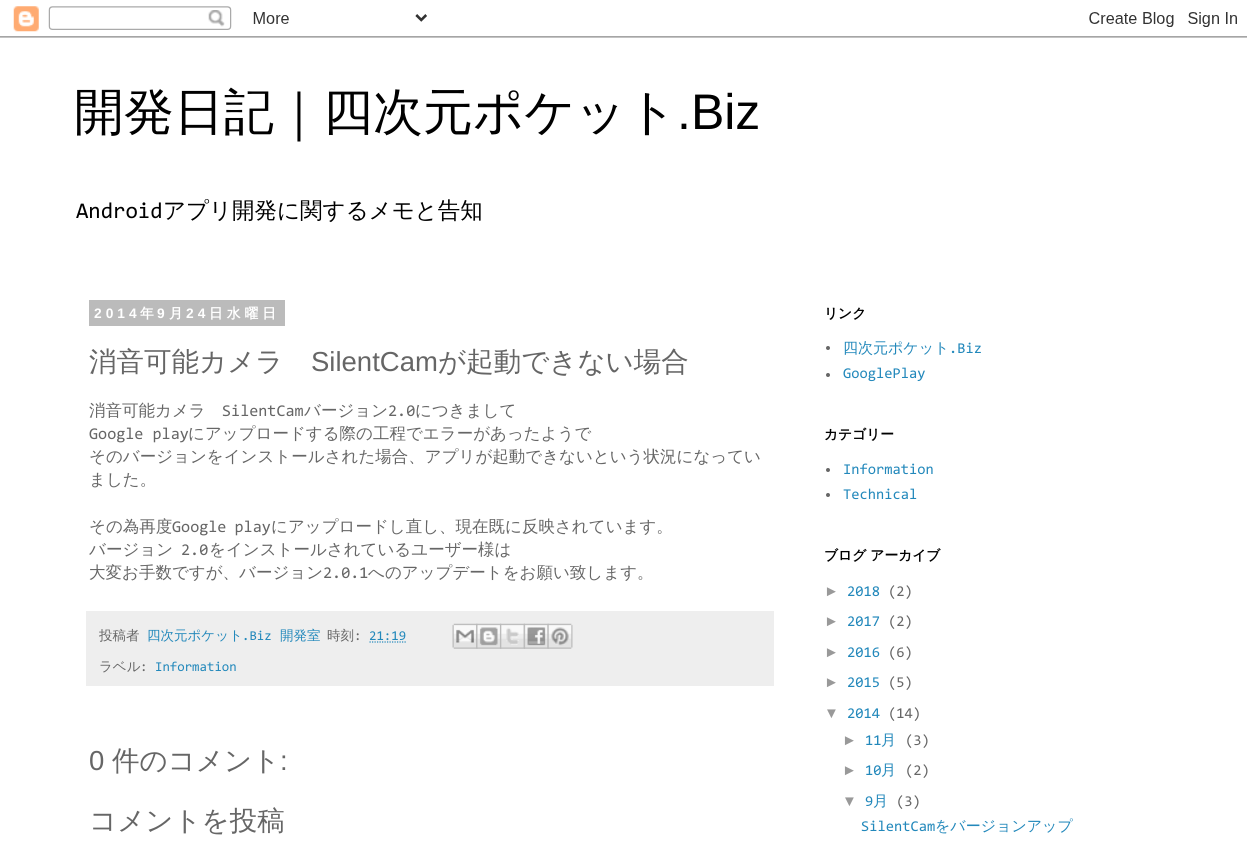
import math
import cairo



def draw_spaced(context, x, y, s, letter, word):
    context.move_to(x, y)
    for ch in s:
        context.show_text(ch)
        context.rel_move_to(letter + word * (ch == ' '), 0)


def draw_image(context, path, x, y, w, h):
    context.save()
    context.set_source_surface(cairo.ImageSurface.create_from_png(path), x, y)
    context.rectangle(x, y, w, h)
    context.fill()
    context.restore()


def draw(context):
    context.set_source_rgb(1, 1, 1)
    context.paint()
    draw_image(context, "images/1.png", 0, 6, 1247, 32)
    context.set_source_rgb(187 / 255, 187 / 255, 187 / 255)
    context.rectangle(89, 300, 196, 26)
    context.fill()
    context.set_source_rgb(238 / 255, 238 / 255, 238 / 255)
    context.rectangle(86, 611, 688, 75)
    context.fill()
    context.new_path()
    context.move_to(369.5, 642)
    context.line_to(406.5, 642)
    context.set_source_rgb(34 / 255, 136 / 255, 187 / 255)
    context.set_line_width(1.2)
    context.set_dash([1.25, 1.25])
    context.stroke()
    draw_image(context, "images/2.png", 452, 623, 26, 26)
    draw_image(context, "images/3.png", 476, 623, 26, 26)
    draw_image(context, "images/4.png", 500, 623, 25, 26)
    draw_image(context, "images/5.png", 523, 623, 26, 26)
    draw_image(context, "images/6.png", 547, 623, 26, 26)
    context.set_source_rgb(102 / 255, 102 / 255, 102 / 255)
    context.arc(828, 348, 2, 0, 2 * math.pi)
    context.fill()
    context.arc(828, 375, 2, 0, 2 * math.pi)
    context.fill()
    context.arc(828, 470, 2, 0, 2 * math.pi)
    context.fill()
    context.arc(828, 495, 2, 0, 2 * math.pi)
    context.fill()
    context.select_font_face("WenQuanYi Zen Hei Medium")
    context.set_font_size(50)
    context.set_source_rgb(0, 0, 0)
    context.move_to(74, 129)
    context.show_text("開発日記｜四次元ポケット")
    context.select_font_face("Liberation Sans")
    context.move_to(677, 129)
    context.show_text(".Biz")
    context.select_font_face("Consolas")
    context.set_font_size(22.5)
    context.move_to(76, 218)
    context.show_text("Android")
    context.select_font_face("WenQuanYi Zen Hei Medium")
    context.move_to(163, 218)
    context.show_text("アプリ開発に関するメモと告知")
    context.select_font_face("Liberation Sans", cairo.FontSlant.NORMAL, cairo.FontWeight.BOLD)
    context.set_font_size(13.75)
    context.set_source_rgb(1, 1, 1)
    draw_spaced(context, 94, 318, "2014", 4, 0)
    context.select_font_face("WenQuanYi Zen Hei", cairo.FontSlant.NORMAL, cairo.FontWeight.BOLD)
    draw_spaced(context, 140, 318, "年", 4, 0)
    context.select_font_face("Liberation Sans", cairo.FontSlant.NORMAL, cairo.FontWeight.BOLD)
    draw_spaced(context, 157, 318, "9", 4, 0)
    context.select_font_face("WenQuanYi Zen Hei", cairo.FontSlant.NORMAL, cairo.FontWeight.BOLD)
    draw_spaced(context, 169, 318, "月", 4, 0)
    context.select_font_face("Liberation Sans", cairo.FontSlant.NORMAL, cairo.FontWeight.BOLD)
    draw_spaced(context, 186, 318, "24", 4, 0)
    context.select_font_face("WenQuanYi Zen Hei", cairo.FontSlant.NORMAL, cairo.FontWeight.BOLD)
    draw_spaced(context, 209, 318, "日水曜日", 4, 0)
    context.select_font_face("WenQuanYi Zen Hei Medium")
    context.set_font_size(27.5)
    context.set_source_rgb(102 / 255, 102 / 255, 102 / 255)
    context.move_to(89, 371)
    context.show_text("消音可能カメラ")
    context.select_font_face("Liberation Sans")
    context.move_to(311, 371)
    context.show_text("SilentCam")
    context.select_font_face("WenQuanYi Zen Hei Medium")
    context.move_to(438, 371)
    context.show_text("が起動できない場合")
    context.set_font_size(16.5)
    context.move_to(89, 416)
    context.show_text("消音可能カメラ")
    context.select_font_face("Consolas")
    context.move_to(222, 416)
    context.show_text("SilentCam")
    context.select_font_face("WenQuanYi Zen Hei Medium")
    context.move_to(304, 416)
    context.show_text("バージョン")
    context.select_font_face("Consolas")
    context.move_to(388, 416)
    context.show_text("2.0")
    context.select_font_face("WenQuanYi Zen Hei Medium")
    context.move_to(415, 416)
    context.show_text("につきまして")
    context.select_font_face("Consolas")
    context.move_to(89, 439)
    context.show_text("Google play")
    context.select_font_face("WenQuanYi Zen Hei Medium")
    context.move_to(188, 439)
    context.show_text("にアップロードする際の工程でエラーがあったようで")
    context.move_to(89, 462)
    context.show_text("そのバージョンをインストールされた場合、アプリが起動できないという状況になってい")
    context.move_to(89, 485)
    context.show_text("ました。")
    context.move_to(89, 532)
    context.show_text("その為再度")
    context.select_font_face("Consolas")
    draw_spaced(context, 172, 532, "Google play", 0, -1)
    context.select_font_face("WenQuanYi Zen Hei Medium")
    context.move_to(271, 532)
    context.show_text("にアップロードし直し、現在既に反映されています。")
    context.move_to(89, 555)
    context.show_text("バージョン")
    context.select_font_face("Consolas")
    context.move_to(181, 555)
    context.show_text("2.0")
    context.select_font_face("WenQuanYi Zen Hei Medium")
    context.move_to(209, 555)
    context.show_text("をインストールされているユーザー様は")
    context.move_to(89, 578)
    context.show_text("大変お手数ですが、バージョン")
    context.select_font_face("Consolas")
    context.move_to(323, 578)
    context.show_text("2.0.1")
    context.select_font_face("WenQuanYi Zen Hei Medium")
    context.move_to(368, 578)
    context.show_text("へのアップデートをお願い致します。")
    context.set_font_size(13.5)
    context.move_to(99, 640)
    context.show_text("投稿者")
    context.set_source_rgb(34 / 255, 136 / 255, 187 / 255)
    context.move_to(147, 640)
    context.show_text("四次元ポケット")
    context.select_font_face("Consolas")
    context.move_to(242, 640)
    context.show_text(".Biz")
    context.select_font_face("WenQuanYi Zen Hei Medium")
    context.move_to(280, 640)
    context.show_text("開発室")
    context.set_source_rgb(102 / 255, 102 / 255, 102 / 255)
    context.move_to(327, 640)
    context.show_text("時刻")
    context.select_font_face("Consolas")
    context.move_to(354, 640)
    context.show_text(":")
    context.set_source_rgb(34 / 255, 136 / 255, 187 / 255)
    context.move_to(369, 640)
    context.show_text("21:19")
    context.select_font_face("WenQuanYi Zen Hei Medium")
    context.set_source_rgb(102 / 255, 102 / 255, 102 / 255)
    context.move_to(99, 671)
    context.show_text("ラベル")
    context.select_font_face("Consolas")
    context.move_to(140, 671)
    context.show_text(":")
    context.set_source_rgb(34 / 255, 136 / 255, 187 / 255)
    context.move_to(155, 671)
    context.show_text("Information")
    context.select_font_face("Liberation Sans")
    context.set_font_size(27.5)
    context.set_source_rgb(102 / 255, 102 / 255, 102 / 255)
    context.move_to(89, 770)
    context.show_text("0")
    context.select_font_face("WenQuanYi Zen Hei Medium")
    context.move_to(112, 770)
    context.show_text("件のコメント")
    context.select_font_face("Liberation Sans")
    context.move_to(280, 770)
    context.show_text(":")
    context.select_font_face("WenQuanYi Zen Hei Medium")
    context.move_to(89, 830)
    context.show_text("コメントを投稿")
    context.select_font_face("WenQuanYi Zen Hei", cairo.FontSlant.NORMAL, cairo.FontWeight.BOLD)
    context.set_font_size(13.75)
    context.set_source_rgb(0, 0, 0)
    context.move_to(824, 318)
    context.show_text("リンク")
    context.select_font_face("WenQuanYi Zen Hei Medium")
    context.set_font_size(15)
    context.set_source_rgb(34 / 255, 136 / 255, 187 / 255)
    context.move_to(843, 353)
    context.show_text("四次元ポケット")
    context.select_font_face("Consolas")
    context.move_to(949, 353)
    context.show_text(".Biz")
    context.move_to(843, 378)
    context.show_text("GooglePlay")
    context.select_font_face("WenQuanYi Zen Hei", cairo.FontSlant.NORMAL, cairo.FontWeight.BOLD)
    context.set_font_size(13.75)
    context.set_source_rgb(0, 0, 0)
    context.move_to(824, 439)
    context.show_text("カテゴリー")
    context.select_font_face("Consolas")
    context.set_font_size(15)
    context.set_source_rgb(34 / 255, 136 / 255, 187 / 255)
    context.move_to(843, 474)
    context.show_text("Information")
    context.move_to(843, 499)
    context.show_text("Technical")
    context.select_font_face("WenQuanYi Zen Hei", cairo.FontSlant.NORMAL, cairo.FontWeight.BOLD)
    context.set_font_size(13.75)
    context.set_source_rgb(0, 0, 0)
    context.move_to(824, 560)
    context.show_text("ブログ アーカイブ")
    context.select_font_face("Liberation Sans")
    context.set_font_size(15)
    context.set_source_rgb(153 / 255, 153 / 255, 153 / 255)
    context.move_to(824, 596)
    context.show_text("►")
    context.select_font_face("Consolas")
    context.set_source_rgb(34 / 255, 136 / 255, 187 / 255)
    context.move_to(847, 596)
    context.show_text("2018")
    context.set_source_rgb(102 / 255, 102 / 255, 102 / 255)
    context.move_to(888, 596)
    context.show_text("(2)")
    context.select_font_face("Liberation Sans")
    context.set_source_rgb(153 / 255, 153 / 255, 153 / 255)
    context.move_to(824, 626)
    context.show_text("►")
    context.select_font_face("Consolas")
    context.set_source_rgb(34 / 255, 136 / 255, 187 / 255)
    context.move_to(847, 626)
    context.show_text("2017")
    context.set_source_rgb(102 / 255, 102 / 255, 102 / 255)
    context.move_to(888, 626)
    context.show_text("(2)")
    context.select_font_face("Liberation Sans")
    context.set_source_rgb(153 / 255, 153 / 255, 153 / 255)
    context.move_to(824, 657)
    context.show_text("►")
    context.select_font_face("Consolas")
    context.set_source_rgb(34 / 255, 136 / 255, 187 / 255)
    context.move_to(847, 657)
    context.show_text("2016")
    context.set_source_rgb(102 / 255, 102 / 255, 102 / 255)
    context.move_to(888, 657)
    context.show_text("(6)")
    context.select_font_face("Liberation Sans")
    context.set_source_rgb(153 / 255, 153 / 255, 153 / 255)
    context.move_to(824, 687)
    context.show_text("►")
    context.select_font_face("Consolas")
    context.set_source_rgb(34 / 255, 136 / 255, 187 / 255)
    context.move_to(847, 687)
    context.show_text("2015")
    context.set_source_rgb(102 / 255, 102 / 255, 102 / 255)
    context.move_to(888, 687)
    context.show_text("(5)")
    context.select_font_face("Liberation Sans")
    context.set_source_rgb(153 / 255, 153 / 255, 153 / 255)
    context.move_to(824, 718)
    context.show_text("▼")
    context.select_font_face("Consolas")
    context.set_source_rgb(34 / 255, 136 / 255, 187 / 255)
    context.move_to(847, 718)
    context.show_text("2014")
    context.set_source_rgb(102 / 255, 102 / 255, 102 / 255)
    context.move_to(888, 718)
    context.show_text("(14)")
    context.select_font_face("Liberation Sans")
    context.set_source_rgb(153 / 255, 153 / 255, 153 / 255)
    context.move_to(842, 745)
    context.show_text("►")
    context.select_font_face("Consolas")
    context.set_source_rgb(34 / 255, 136 / 255, 187 / 255)
    context.move_to(865, 745)
    context.show_text("11")
    context.select_font_face("WenQuanYi Zen Hei Medium")
    context.move_to(881, 745)
    context.show_text("月")
    context.select_font_face("Consolas")
    context.set_source_rgb(102 / 255, 102 / 255, 102 / 255)
    context.move_to(905, 745)
    context.show_text("(3)")
    context.select_font_face("Liberation Sans")
    context.set_source_rgb(153 / 255, 153 / 255, 153 / 255)
    context.move_to(842, 775)
    context.show_text("►")
    context.select_font_face("Consolas")
    context.set_source_rgb(34 / 255, 136 / 255, 187 / 255)
    context.move_to(865, 775)
    context.show_text("10")
    context.select_font_face("WenQuanYi Zen Hei Medium")
    context.move_to(881, 775)
    context.show_text("月")
    context.select_font_face("Consolas")
    context.set_source_rgb(102 / 255, 102 / 255, 102 / 255)
    context.move_to(905, 775)
    context.show_text("(2)")
    context.select_font_face("Liberation Sans")
    context.set_source_rgb(153 / 255, 153 / 255, 153 / 255)
    context.move_to(842, 806)
    context.show_text("▼")
    context.select_font_face("Consolas")
    context.set_source_rgb(34 / 255, 136 / 255, 187 / 255)
    context.move_to(865, 806)
    context.show_text("9")
    context.select_font_face("WenQuanYi Zen Hei Medium")
    context.move_to(873, 806)
    context.show_text("月")
    context.select_font_face("Consolas")
    context.set_source_rgb(102 / 255, 102 / 255, 102 / 255)
    context.move_to(896, 806)
    context.show_text("(3)")
    context.set_source_rgb(34 / 255, 136 / 255, 187 / 255)
    context.move_to(861, 831)
    context.show_text("SilentCam")
    context.select_font_face("WenQuanYi Zen Hei Medium")
    context.move_to(935, 831)
    context.show_text("をバージョンアップ")


surface = cairo.ImageSurface(cairo.Format.RGB24, 1247, 854)
context = cairo.Context(surface)
options = cairo.FontOptions()
options.set_hint_metrics(cairo.HintMetrics.OFF)
options.set_hint_style(cairo.HintStyle.NONE)
context.set_font_options(options)
context.set_miter_limit(4)
draw(context)
surface.write_to_png("out.png")
